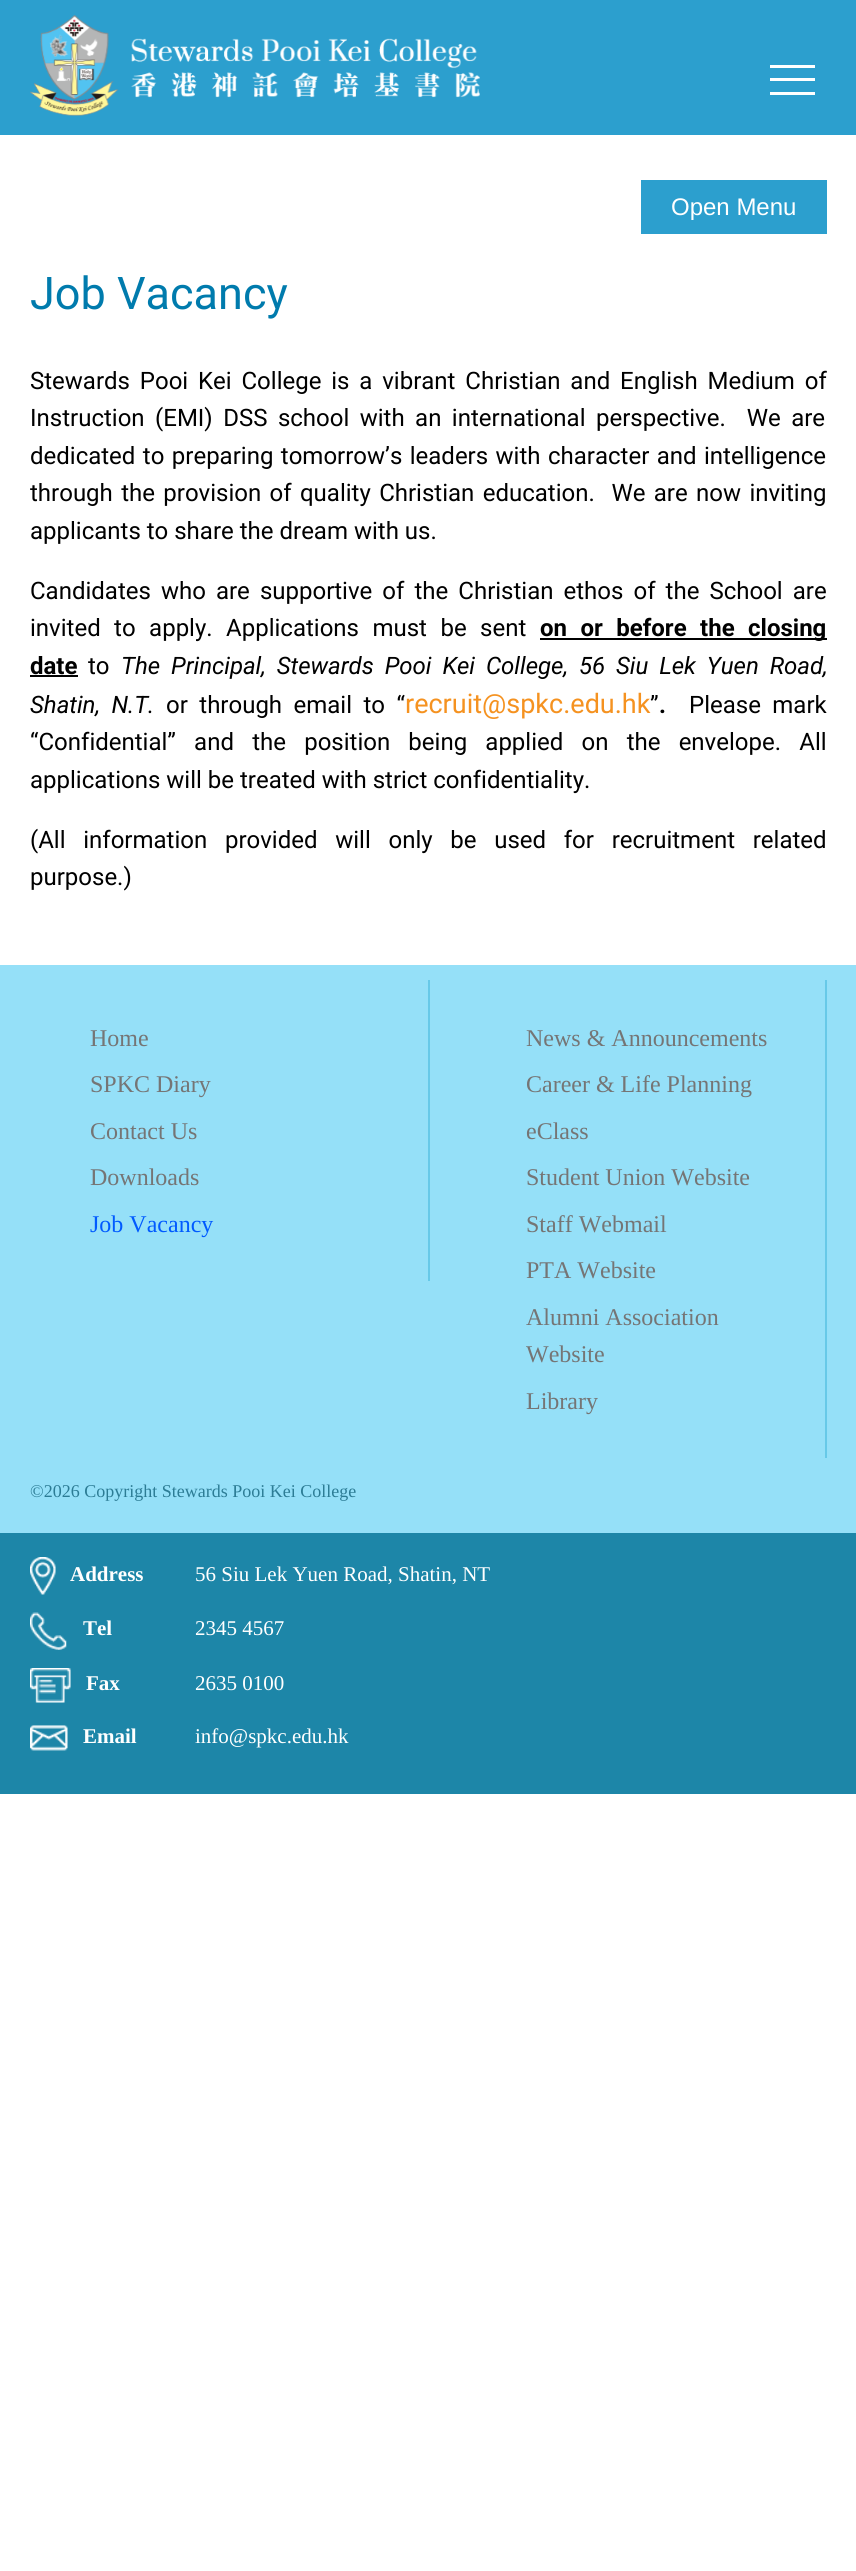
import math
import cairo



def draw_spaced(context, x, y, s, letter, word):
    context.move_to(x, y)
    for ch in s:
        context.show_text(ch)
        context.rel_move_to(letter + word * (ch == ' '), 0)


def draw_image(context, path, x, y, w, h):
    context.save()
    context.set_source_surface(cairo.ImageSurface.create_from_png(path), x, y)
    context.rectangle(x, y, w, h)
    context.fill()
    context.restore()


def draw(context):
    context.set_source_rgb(1, 1, 1)
    context.paint()
    context.set_source_rgb(44 / 255, 159 / 255, 206 / 255)
    context.rectangle(0, 0, 856, 135)
    context.fill()
    draw_image(context, "images/1.png", 30, 15, 450, 101)
    context.set_source_rgb(1, 1, 1)
    context.rectangle(770, 65, 45, 3)
    context.fill()
    context.rectangle(770, 78, 45, 3)
    context.fill()
    context.rectangle(770, 92, 45, 3)
    context.fill()
    context.set_source_rgb(44 / 255, 159 / 255, 206 / 255)
    context.rectangle(641, 180, 186, 54)
    context.fill()
    context.set_source_rgb(0, 0, 0)
    context.rectangle(540, 638, 287, 2)
    context.fill()
    context.rectangle(30, 675, 48, 2)
    context.fill()
    context.set_source_rgb(149 / 255, 224 / 255, 248 / 255)
    context.rectangle(0, 965, 856, 568)
    context.fill()
    context.set_source_rgb(103 / 255, 201 / 255, 232 / 255)
    context.rectangle(428, 980, 2, 301)
    context.fill()
    context.rectangle(825, 980, 2, 478)
    context.fill()
    context.set_source_rgb(29 / 255, 134 / 255, 168 / 255)
    context.rectangle(0, 1533, 856, 261)
    context.fill()
    draw_image(context, "images/2.png", 30, 1557, 26, 38)
    draw_image(context, "images/3.png", 30, 1612, 37, 38)
    draw_image(context, "images/4.png", 30, 1668, 41, 35)
    draw_image(context, "images/5.png", 30, 1725, 38, 26)
    context.select_font_face("Liberation Sans")
    context.set_font_size(24)
    context.set_source_rgb(1, 1, 1)
    context.move_to(671, 215)
    context.show_text("Open Menu")
    context.select_font_face("Roboto")
    context.set_font_size(45)
    context.set_source_rgb(0, 123 / 255, 173 / 255)
    context.move_to(30, 309)
    context.show_text("Job Vacancy")
    context.set_font_size(24)
    context.set_source_rgb(0, 0, 0)
    draw_spaced(context, 30, 389, "Stewards Pooi Kei College is a vibrant Christian and English Medium of", 0, 3.9)
    draw_spaced(context, 30, 426, "Instruction (EMI) DSS school with an international perspective.  We are", 0, 4.5)
    draw_spaced(context, 30, 464, "dedicated to preparing tomorrow’s leaders with character and intelligence", 0, 1.5)
    draw_spaced(context, 30, 501, "through the provision of quality Christian education.  We are now inviting", 0, 2.4)
    context.move_to(30, 539)
    context.show_text("applicants to share the dream with us.")
    draw_spaced(context, 30, 599, "Candidates who are supportive of the Christian ethos of the School are", 0, 4.1)
    draw_spaced(context, 30, 636, "invited to apply. Applications must be sent", 0, 7.5)
    context.select_font_face("Roboto", cairo.FontSlant.NORMAL, cairo.FontWeight.BOLD)
    draw_spaced(context, 540, 636, "on or before the closing", 0, 7.5)
    context.move_to(30, 674)
    context.show_text("date")
    context.select_font_face("Roboto")
    context.move_to(88, 674)
    context.show_text("to")
    context.select_font_face("Roboto", cairo.FontSlant.ITALIC)
    draw_spaced(context, 121, 674, "The Principal, Stewards Pooi Kei College, 56 Siu Lek Yuen Road,", 0, 5)
    draw_spaced(context, 30, 713, "Shatin, N.T.", 0, 5.5)
    context.select_font_face("Roboto")
    draw_spaced(context, 166, 713, "or through email to “", 0, 5.5)
    context.set_font_size(27)
    context.set_source_rgb(245 / 255, 146 / 255, 32 / 255)
    context.move_to(405, 713)
    context.show_text("recruit@spkc.edu.hk")
    context.set_font_size(24)
    context.set_source_rgb(0, 0, 0)
    context.move_to(650, 713)
    context.show_text("”")
    context.select_font_face("Roboto", cairo.FontSlant.NORMAL, cairo.FontWeight.BOLD)
    context.move_to(659, 713)
    context.show_text(".")
    context.select_font_face("Roboto")
    draw_spaced(context, 689, 713, "Please mark", 0, 5.5)
    draw_spaced(context, 30, 750, "“Confidential” and the position being applied on the envelope. All", 0, 12.25)
    context.move_to(30, 788)
    context.show_text("applications will be treated with strict confidentiality.")
    draw_spaced(context, 30, 848, "(All information provided will only be used for recruitment related", 0, 11.75)
    context.move_to(30, 885)
    context.show_text("purpose.)")
    context.select_font_face("Liberation Serif")
    context.set_source_rgb(117 / 255, 117 / 255, 117 / 255)
    context.move_to(90, 1046)
    context.show_text("Home")
    context.move_to(90, 1092)
    context.show_text("SPKC Diary")
    context.move_to(90, 1139)
    context.show_text("Contact Us")
    context.move_to(90, 1185)
    context.show_text("Downloads")
    context.set_source_rgb(0, 90 / 255, 1)
    context.move_to(90, 1232)
    context.show_text("Job Vacancy")
    context.set_source_rgb(117 / 255, 117 / 255, 117 / 255)
    context.move_to(526, 1046)
    context.show_text("News & Announcements")
    context.move_to(526, 1092)
    context.show_text("Career & Life Planning")
    context.move_to(526, 1139)
    context.show_text("eClass")
    context.move_to(526, 1185)
    context.show_text("Student Union Website")
    context.move_to(526, 1232)
    context.show_text("Staff Webmail")
    context.move_to(526, 1278)
    context.show_text("PTA Website")
    context.move_to(526, 1325)
    context.show_text("Alumni Association")
    context.move_to(526, 1362)
    context.show_text("Website")
    context.move_to(526, 1409)
    context.show_text("Library")
    context.set_font_size(18)
    context.set_source_rgb(44 / 255, 124 / 255, 149 / 255)
    context.move_to(30, 1497)
    context.show_text("©2026 Copyright Stewards Pooi Kei College")
    context.select_font_face("Liberation Serif", cairo.FontSlant.NORMAL, cairo.FontWeight.BOLD)
    context.set_font_size(21)
    context.set_source_rgb(1, 1, 1)
    context.move_to(70, 1581)
    context.show_text("Address")
    context.select_font_face("Liberation Serif")
    context.move_to(195, 1581)
    context.show_text("56 Siu Lek Yuen Road, Shatin, NT")
    context.select_font_face("Liberation Serif", cairo.FontSlant.NORMAL, cairo.FontWeight.BOLD)
    context.move_to(83, 1635)
    context.show_text("Tel")
    context.select_font_face("Liberation Serif")
    context.move_to(195, 1635)
    context.show_text("2345 4567")
    context.select_font_face("Liberation Serif", cairo.FontSlant.NORMAL, cairo.FontWeight.BOLD)
    context.move_to(86, 1690)
    context.show_text("Fax")
    context.select_font_face("Liberation Serif")
    context.move_to(195, 1690)
    context.show_text("2635 0100")
    context.select_font_face("Liberation Serif", cairo.FontSlant.NORMAL, cairo.FontWeight.BOLD)
    context.move_to(83, 1743)
    context.show_text("Email")
    context.select_font_face("Liberation Serif")
    context.move_to(195, 1743)
    context.show_text("info@spkc.edu.hk")


surface = cairo.ImageSurface(cairo.Format.RGB24, 856, 2571)
context = cairo.Context(surface)
options = cairo.FontOptions()
options.set_hint_metrics(cairo.HintMetrics.OFF)
options.set_hint_style(cairo.HintStyle.NONE)
context.set_font_options(options)
context.set_miter_limit(4)
draw(context)
surface.write_to_png("out.png")
